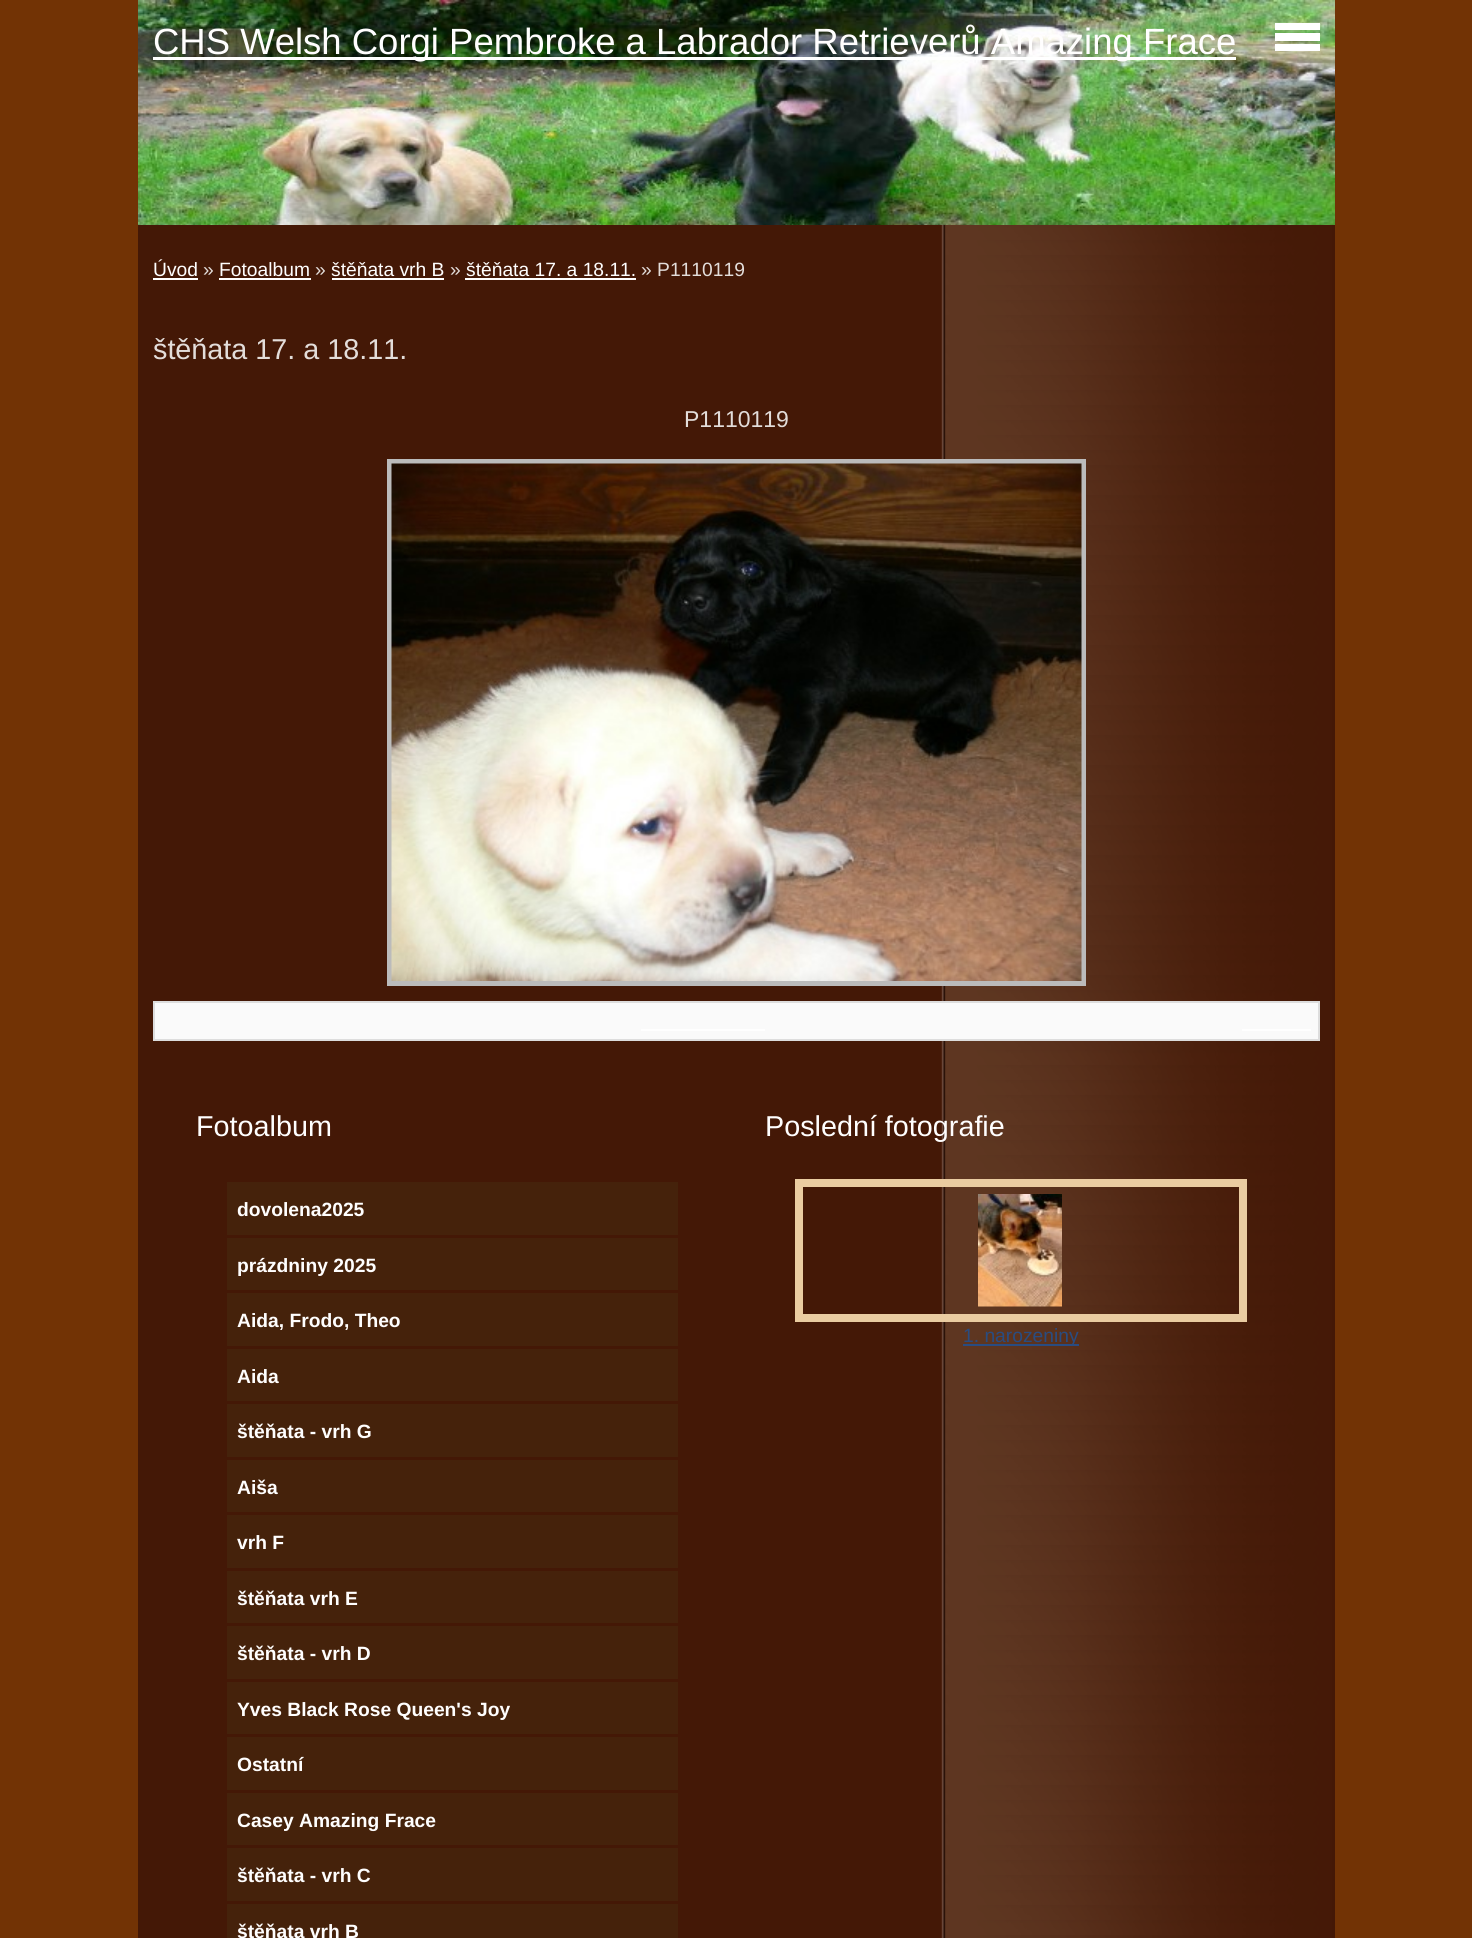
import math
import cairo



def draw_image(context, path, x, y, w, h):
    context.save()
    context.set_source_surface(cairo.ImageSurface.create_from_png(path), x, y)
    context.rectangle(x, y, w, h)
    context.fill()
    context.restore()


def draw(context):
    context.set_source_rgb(114 / 255, 51 / 255, 5 / 255)
    context.paint()
    draw_image(context, "images/1.png", 138, 225, 1197, 1713)
    draw_image(context, "images/2.png", 138, 0, 1197, 225)
    context.set_source_rgb(1, 1, 1)
    context.rectangle(153, 57, 1083, 3)
    context.fill()
    context.rectangle(1275, 23, 45, 7)
    context.fill()
    context.rectangle(1275, 33, 45, 8)
    context.fill()
    context.rectangle(1275, 44, 45, 7)
    context.fill()
    context.rectangle(153, 278, 45, 2)
    context.fill()
    context.rectangle(219, 278, 92, 2)
    context.fill()
    context.rectangle(332, 278, 112, 2)
    context.fill()
    context.rectangle(465, 278, 171, 2)
    context.fill()
    context.rectangle(389.5, 461.5, 694, 522)
    context.set_source_rgb(187 / 255, 187 / 255, 187 / 255)
    context.set_line_width(5)
    context.stroke()
    draw_image(context, "images/3.png", 391, 463, 691, 518)
    context.set_source_rgb(250 / 255, 250 / 255, 250 / 255)
    context.rectangle(154, 1002, 1165, 38)
    context.fill_preserve()
    context.set_source_rgb(221 / 255, 221 / 255, 221 / 255)
    context.set_line_width(2)
    context.stroke()
    context.set_source_rgb(1, 1, 1)
    context.rectangle(641, 1029, 124, 2)
    context.fill()
    context.rectangle(1242, 1029, 69, 2)
    context.fill()
    context.set_source_rgb(69 / 255, 34 / 255, 11 / 255)
    context.rectangle(227, 1182, 451, 53)
    context.fill()
    context.rectangle(227, 1238, 451, 52)
    context.fill()
    context.rectangle(227, 1293, 451, 53)
    context.fill()
    context.rectangle(227, 1349, 451, 52)
    context.fill()
    context.rectangle(227, 1404, 451, 53)
    context.fill()
    context.rectangle(227, 1460, 451, 52)
    context.fill()
    context.rectangle(227, 1515, 451, 53)
    context.fill()
    context.rectangle(227, 1571, 451, 52)
    context.fill()
    context.rectangle(227, 1626, 451, 53)
    context.fill()
    context.rectangle(227, 1682, 451, 52)
    context.fill()
    context.rectangle(227, 1737, 451, 53)
    context.fill()
    context.rectangle(227, 1793, 451, 52)
    context.fill()
    context.rectangle(227, 1848, 451, 53)
    context.fill()
    context.rectangle(227, 1904, 451, 34)
    context.fill()
    context.rectangle(799, 1183, 444, 135)
    context.set_source_rgb(234 / 255, 204 / 255, 161 / 255)
    context.set_line_width(8)
    context.stroke()
    draw_image(context, "images/4.png", 978, 1194, 84, 113)
    context.set_source_rgb(41 / 255, 76 / 255, 129 / 255)
    context.rectangle(963, 1344, 116, 2)
    context.fill()
    context.select_font_face("Liberation Sans")
    context.set_font_size(36.5)
    context.set_source_rgb(1, 254 / 255, 254 / 255)
    context.move_to(153, 54)
    context.show_text("CHS Welsh Corgi Pembroke a Labrador Retrieverů Amazing Frace")
    context.set_font_size(19.25)
    context.move_to(153, 276)
    context.show_text("Úvod")
    context.set_source_rgb(227 / 255, 221 / 255, 218 / 255)
    context.move_to(203, 276)
    context.show_text("»")
    context.set_source_rgb(1, 254 / 255, 254 / 255)
    context.move_to(219, 276)
    context.show_text("Fotoalbum")
    context.set_source_rgb(227 / 255, 221 / 255, 218 / 255)
    context.move_to(315, 276)
    context.show_text("»")
    context.set_source_rgb(1, 254 / 255, 254 / 255)
    context.move_to(331, 276)
    context.show_text("štěňata vrh B")
    context.set_source_rgb(227 / 255, 221 / 255, 218 / 255)
    context.move_to(450, 276)
    context.show_text("»")
    context.set_source_rgb(1, 254 / 255, 254 / 255)
    context.move_to(466, 276)
    context.show_text("štěňata 17. a 18.11.")
    context.set_source_rgb(227 / 255, 221 / 255, 218 / 255)
    context.move_to(641, 276)
    context.show_text("» P1110119")
    context.set_font_size(28.75)
    context.move_to(153, 359)
    context.show_text("štěňata 17. a 18.11.")
    context.set_font_size(23)
    context.move_to(684, 427)
    context.show_text("P1110119")
    context.set_font_size(28.75)
    context.set_source_rgb(1, 254 / 255, 254 / 255)
    context.move_to(196, 1136)
    context.show_text("Fotoalbum")
    context.select_font_face("Liberation Sans", cairo.FontSlant.NORMAL, cairo.FontWeight.BOLD)
    context.set_font_size(19.25)
    context.move_to(237, 1216)
    context.show_text("dovolena2025")
    context.move_to(237, 1272)
    context.show_text("prázdniny 2025")
    context.move_to(237, 1327)
    context.show_text("Aida, Frodo, Theo")
    context.move_to(237, 1383)
    context.show_text("Aida")
    context.move_to(237, 1438)
    context.show_text("štěňata - vrh G")
    context.move_to(237, 1494)
    context.show_text("Aiša")
    context.move_to(237, 1549)
    context.show_text("vrh F")
    context.move_to(237, 1605)
    context.show_text("štěňata vrh E")
    context.move_to(237, 1660)
    context.show_text("štěňata - vrh D")
    context.move_to(237, 1716)
    context.show_text("Yves Black Rose Queen's Joy")
    context.move_to(237, 1771)
    context.show_text("Ostatní")
    context.move_to(237, 1827)
    context.show_text("Casey Amazing Frace")
    context.move_to(237, 1882)
    context.show_text("štěňata - vrh C")
    context.move_to(237, 1938)
    context.show_text("štěňata vrh B")
    context.select_font_face("Liberation Sans")
    context.set_font_size(28.75)
    context.move_to(765, 1136)
    context.show_text("Poslední fotografie")
    context.set_font_size(19.25)
    context.set_source_rgb(41 / 255, 76 / 255, 129 / 255)
    context.move_to(963, 1342)
    context.show_text("1. narozeniny")


surface = cairo.ImageSurface(cairo.Format.RGB24, 1472, 1938)
context = cairo.Context(surface)
options = cairo.FontOptions()
options.set_hint_metrics(cairo.HintMetrics.OFF)
options.set_hint_style(cairo.HintStyle.NONE)
context.set_font_options(options)
context.set_miter_limit(4)
draw(context)
surface.write_to_png("out.png")
